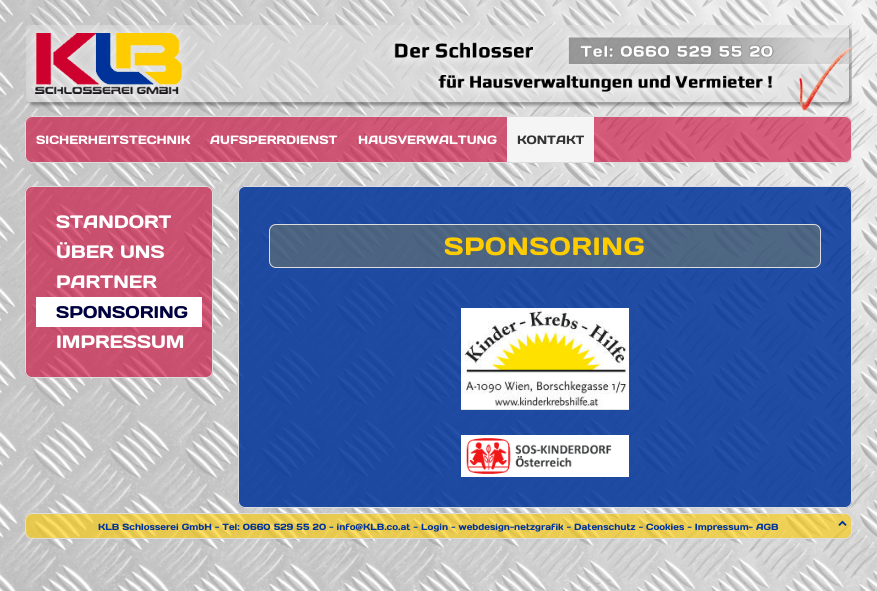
import math
import cairo



def draw_spaced(context, x, y, s, letter, word):
    context.move_to(x, y)
    for ch in s:
        context.show_text(ch)
        context.rel_move_to(letter + word * (ch == ' '), 0)


def rounded_rect(context, x, y, w, h, r):
    context.new_sub_path()
    for i, (u, v) in enumerate([(x + w - r, y + h - r), (x + r, y + h - r), (x + r, y + r), (x + w - r, y + r)]):
        context.arc(u, v, r, i * math.pi / 2, (i + 1) * math.pi / 2)
    context.close_path()


def draw_image(context, path, x, y, w, h):
    context.save()
    context.set_source_surface(cairo.ImageSurface.create_from_png(path), x, y)
    context.rectangle(x, y, w, h)
    context.fill()
    context.restore()


def draw(context):
    context.set_source_rgb(1, 1, 1)
    context.paint()
    draw_image(context, "images/1.png", 0, 0, 877, 591)
    draw_image(context, "images/2.png", 26, 25, 826, 86)
    draw_image(context, "images/3.png", 25, 116, 827, 47)
    rounded_rect(context, 25.5, 116.5, 826, 46, 6.5)
    context.set_source_rgb(221 / 255, 221 / 255, 221 / 255)
    context.set_line_width(1)
    context.stroke()
    context.set_source_rgb(245 / 255, 245 / 255, 245 / 255)
    context.rectangle(507, 117, 87, 45)
    context.fill()
    draw_image(context, "images/4.png", 25, 186, 188, 192)
    rounded_rect(context, 25.5, 186.5, 187, 191, 6.5)
    context.set_source_rgb(221 / 255, 221 / 255, 221 / 255)
    context.stroke()
    context.set_source_rgb(1, 1, 1)
    context.rectangle(36, 297, 166, 30)
    context.fill()
    draw_image(context, "images/5.png", 238, 186, 614, 322)
    rounded_rect(context, 238.5, 186.5, 613, 321, 6.5)
    context.set_source_rgb(221 / 255, 221 / 255, 221 / 255)
    context.stroke()
    draw_image(context, "images/6.png", 269, 224, 552, 44)
    rounded_rect(context, 269.5, 224.5, 551, 43, 6.5)
    context.stroke()
    draw_image(context, "images/7.png", 461, 308, 168, 102)
    draw_image(context, "images/8.png", 461, 435, 168, 42)
    draw_image(context, "images/9.png", 25, 513, 827, 26)
    rounded_rect(context, 25.5, 513.5, 826, 25, 6.5)
    context.stroke()
    draw_image(context, "images/10.png", 838, 520, 9, 6)
    context.select_font_face("Days One")
    context.set_font_size(12)
    context.set_source_rgb(1, 1, 1)
    context.move_to(36, 144)
    context.show_text("SICHERHEITSTECHNIK")
    context.move_to(210, 144)
    context.show_text("AUFSPERRDIENST")
    context.move_to(358, 144)
    context.show_text("HAUSVERWALTUNG")
    context.set_source_rgb(51 / 255, 51 / 255, 51 / 255)
    context.move_to(517, 144)
    context.show_text("KONTAKT")
    context.set_font_size(18)
    context.set_source_rgb(1, 1, 1)
    context.move_to(56, 228)
    context.show_text("STANDORT")
    context.move_to(56, 258)
    context.show_text("ÜBER UNS")
    context.move_to(56, 288)
    context.show_text("PARTNER")
    context.set_font_size(17)
    context.set_source_rgb(0, 0, 64 / 255)
    context.move_to(56, 318)
    context.show_text("SPONSORING")
    context.set_font_size(18)
    context.set_source_rgb(1, 1, 1)
    context.move_to(56, 348)
    context.show_text("IMPRESSUM")
    context.set_font_size(25)
    context.set_source_rgb(1, 204 / 255, 0)
    draw_spaced(context, 444, 255, "SPONSORING", 0.75, 0)
    context.set_font_size(9)
    context.set_source_rgb(0, 51 / 255, 153 / 255)
    context.move_to(98, 530)
    context.show_text("KLB Schlosserei GmbH - Tel: 0660 529 55 20 - info@KLB.co.at - Login - webdesign-netzgrafik - Datenschutz - Cookies - Impressum- AGB")


surface = cairo.ImageSurface(cairo.Format.RGB24, 877, 591)
context = cairo.Context(surface)
options = cairo.FontOptions()
options.set_hint_metrics(cairo.HintMetrics.OFF)
options.set_hint_style(cairo.HintStyle.NONE)
context.set_font_options(options)
context.set_miter_limit(4)
draw(context)
surface.write_to_png("out.png")
